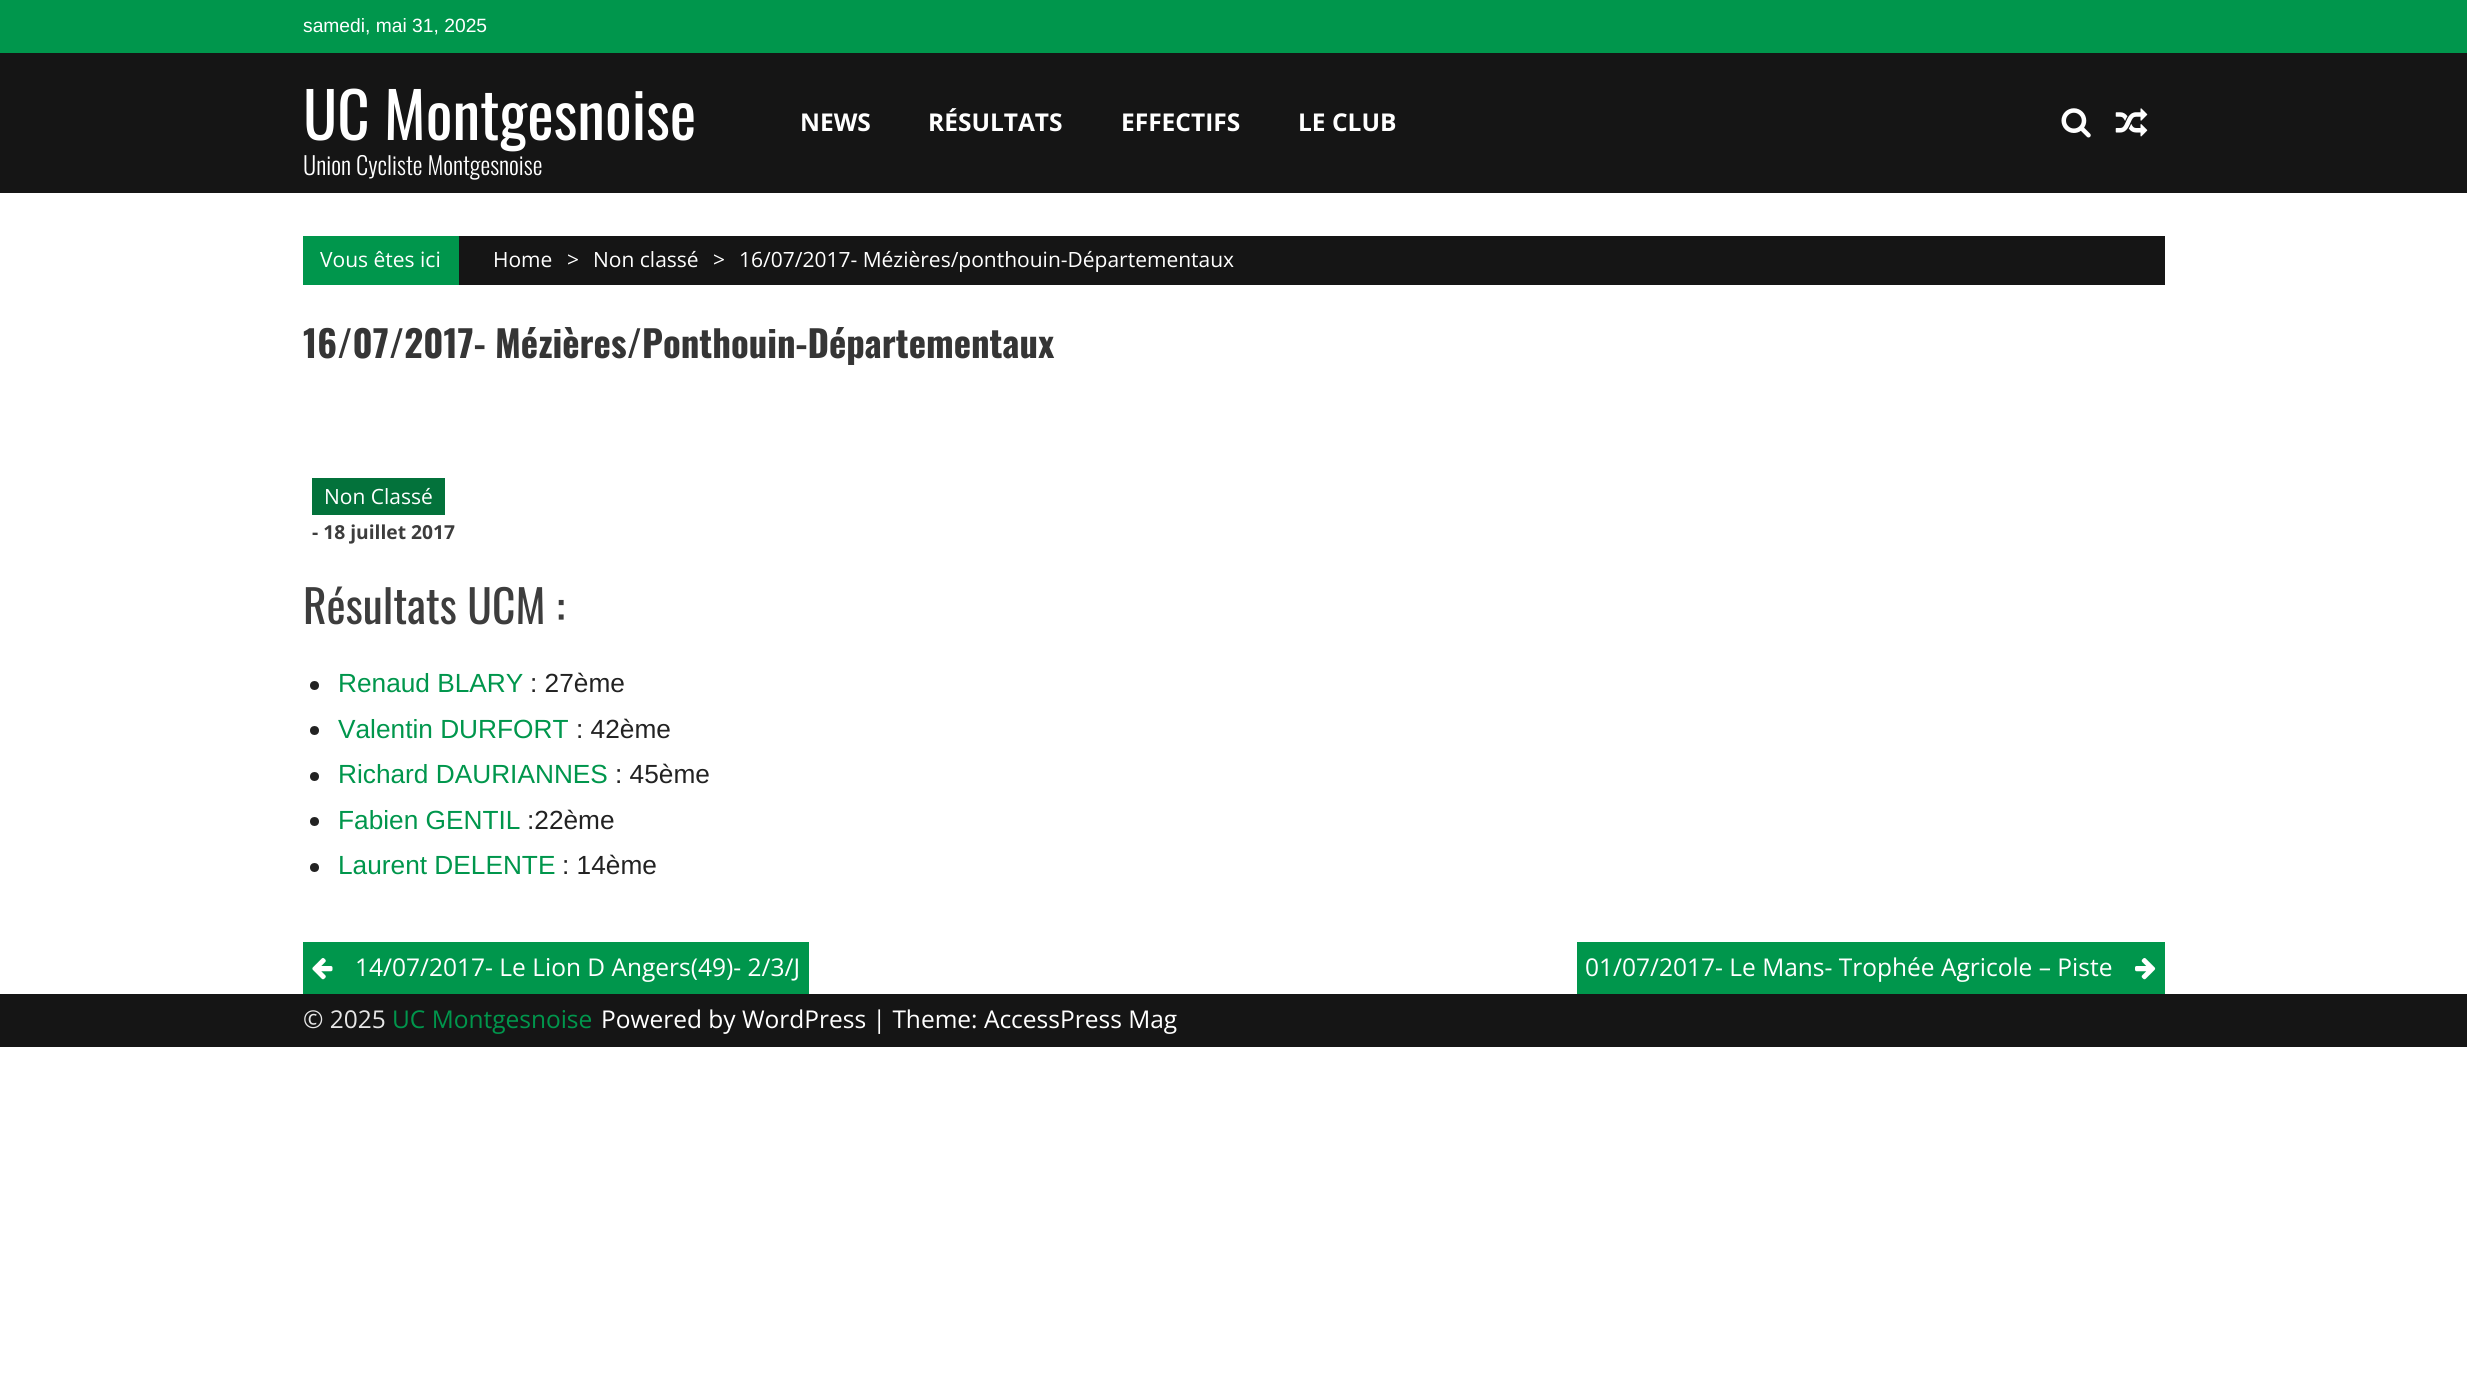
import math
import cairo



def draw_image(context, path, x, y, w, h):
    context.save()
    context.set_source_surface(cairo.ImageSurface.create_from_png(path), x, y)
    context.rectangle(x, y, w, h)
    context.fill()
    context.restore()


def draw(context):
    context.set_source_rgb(1, 1, 1)
    context.paint()
    context.set_source_rgb(0, 150 / 255, 76 / 255)
    context.rectangle(0, 0, 2467, 53)
    context.fill()
    context.set_source_rgb(21 / 255, 21 / 255, 21 / 255)
    context.rectangle(0, 53, 2467, 140)
    context.fill()
    draw_image(context, "images/1.png", 2061, 108, 30, 30)
    draw_image(context, "images/2.png", 2115, 108, 33, 29)
    context.rectangle(459, 236, 1706, 49)
    context.fill()
    context.set_source_rgb(0, 150 / 255, 76 / 255)
    context.rectangle(303, 236, 156, 49)
    context.fill()
    context.set_source_rgb(3 / 255, 114 / 255, 59 / 255)
    context.rectangle(312, 478, 133, 37)
    context.fill()
    context.set_source_rgb(34 / 255, 34 / 255, 34 / 255)
    context.arc(314.5, 685.5, 4.5, 0, 2 * math.pi)
    context.fill()
    context.arc(314.5, 730.5, 4.5, 0, 2 * math.pi)
    context.fill()
    context.arc(314.5, 776.5, 4.5, 0, 2 * math.pi)
    context.fill()
    context.arc(314.5, 821.5, 4.5, 0, 2 * math.pi)
    context.fill()
    context.arc(314.5, 867.5, 4.5, 0, 2 * math.pi)
    context.fill()
    context.set_source_rgb(0, 150 / 255, 76 / 255)
    context.rectangle(303, 942, 506, 52)
    context.fill()
    draw_image(context, "images/3.png", 312, 958, 21, 22)
    context.rectangle(1577, 942, 588, 52)
    context.fill()
    draw_image(context, "images/4.png", 2135, 958, 21, 22)
    context.set_source_rgb(21 / 255, 21 / 255, 21 / 255)
    context.rectangle(0, 994, 2467, 53)
    context.fill()
    context.select_font_face("Liberation Sans")
    context.set_font_size(19.25)
    context.set_source_rgb(1, 1, 1)
    context.move_to(303, 32)
    context.show_text("samedi, mai 31, 2025")
    context.select_font_face("Oswald")
    context.set_font_size(63)
    context.move_to(303, 140)
    context.show_text("UC Montgesnoise")
    context.select_font_face("Oswald Light")
    context.set_font_size(24.5)
    context.move_to(303, 175)
    context.show_text("Union Cycliste Montgesnoise")
    context.select_font_face("Open Sans", cairo.FontSlant.NORMAL, cairo.FontWeight.BOLD)
    context.move_to(800, 131)
    context.show_text("NEWS")
    context.move_to(928, 131)
    context.show_text("RÉSULTATS")
    context.move_to(1121, 131)
    context.show_text("EFFECTIFS")
    context.move_to(1298, 131)
    context.show_text("LE CLUB")
    context.select_font_face("Open Sans")
    context.set_font_size(21)
    context.move_to(320, 267)
    context.show_text("Vous êtes ici")
    context.move_to(493, 267)
    context.show_text("Home")
    context.move_to(567, 267)
    context.show_text(">")
    context.move_to(593, 267)
    context.show_text("Non classé")
    context.move_to(713, 267)
    context.show_text(">")
    context.move_to(739, 267)
    context.show_text("16/07/2017- Mézières/ponthouin-Départementaux")
    context.select_font_face("Oswald", cairo.FontSlant.NORMAL, cairo.FontWeight.BOLD)
    context.set_font_size(36.75)
    context.set_source_rgb(53 / 255, 53 / 255, 53 / 255)
    context.move_to(303, 358)
    context.show_text("16/07/2017- Mézières/Ponthouin-Départementaux")
    context.select_font_face("Open Sans")
    context.set_font_size(21)
    context.set_source_rgb(1, 1, 1)
    context.move_to(324, 504)
    context.show_text("Non Classé")
    context.select_font_face("Open Sans", cairo.FontSlant.NORMAL, cairo.FontWeight.BOLD)
    context.set_font_size(19.25)
    context.set_source_rgb(61 / 255, 61 / 255, 61 / 255)
    context.move_to(312, 539)
    context.show_text("- 18 juillet 2017")
    context.select_font_face("Oswald")
    context.set_font_size(45.5)
    context.move_to(303, 624)
    context.show_text("Résultats UCM :")
    context.select_font_face("Liberation Sans")
    context.set_font_size(26.25)
    context.set_source_rgb(0, 150 / 255, 76 / 255)
    context.move_to(338, 692)
    context.show_text("Renaud BLARY")
    context.set_source_rgb(34 / 255, 34 / 255, 34 / 255)
    context.move_to(530, 692)
    context.show_text(": 27ème")
    context.set_source_rgb(0, 150 / 255, 76 / 255)
    context.move_to(338, 738)
    context.show_text("Valentin DURFORT")
    context.set_source_rgb(34 / 255, 34 / 255, 34 / 255)
    context.move_to(576, 738)
    context.show_text(": 42ème")
    context.set_source_rgb(0, 150 / 255, 76 / 255)
    context.move_to(338, 783)
    context.show_text("Richard DAURIANNES")
    context.set_source_rgb(34 / 255, 34 / 255, 34 / 255)
    context.move_to(615, 783)
    context.show_text(": 45ème")
    context.set_source_rgb(0, 150 / 255, 76 / 255)
    context.move_to(338, 829)
    context.show_text("Fabien GENTIL")
    context.set_source_rgb(34 / 255, 34 / 255, 34 / 255)
    context.move_to(527, 829)
    context.show_text(":22ème")
    context.set_source_rgb(0, 150 / 255, 76 / 255)
    context.move_to(338, 874)
    context.show_text("Laurent DELENTE")
    context.set_source_rgb(34 / 255, 34 / 255, 34 / 255)
    context.move_to(562, 874)
    context.show_text(": 14ème")
    context.select_font_face("Open Sans")
    context.set_font_size(24.5)
    context.set_source_rgb(1, 1, 1)
    context.move_to(355, 976)
    context.show_text("14/07/2017- Le Lion D Angers(49)- 2/3/J")
    context.move_to(1585, 976)
    context.show_text("01/07/2017- Le Mans- Trophée Agricole – Piste")
    context.set_source_rgb(230 / 255, 230 / 255, 230 / 255)
    context.move_to(303, 1028)
    context.show_text("© 2025")
    context.set_source_rgb(0, 150 / 255, 76 / 255)
    context.move_to(392, 1028)
    context.show_text("UC Montgesnoise")
    context.set_source_rgb(1, 1, 1)
    context.move_to(601, 1028)
    context.show_text("Powered by WordPress | Theme: AccessPress Mag")


surface = cairo.ImageSurface(cairo.Format.RGB24, 2467, 1381)
context = cairo.Context(surface)
options = cairo.FontOptions()
options.set_hint_metrics(cairo.HintMetrics.OFF)
options.set_hint_style(cairo.HintStyle.NONE)
context.set_font_options(options)
context.set_miter_limit(4)
draw(context)
surface.write_to_png("out.png")
